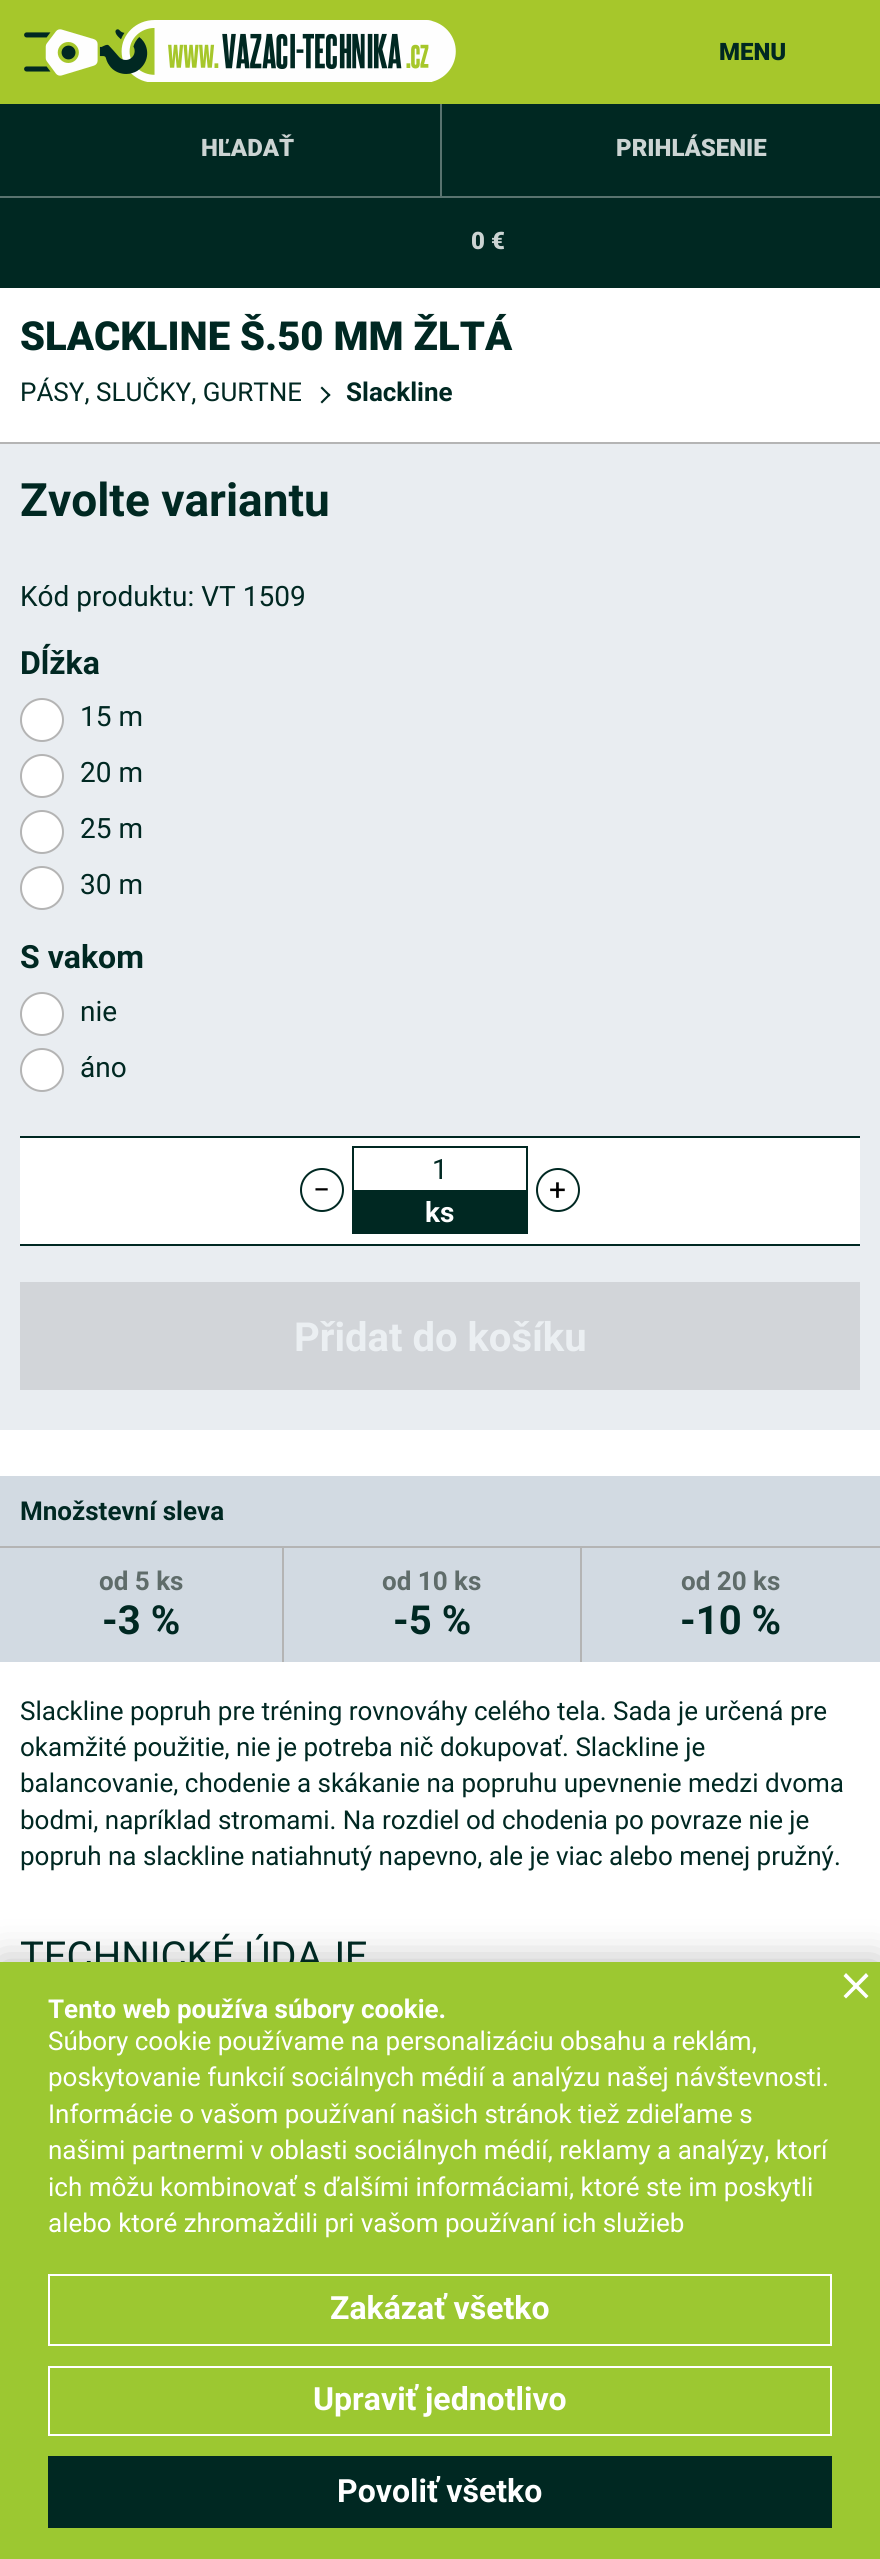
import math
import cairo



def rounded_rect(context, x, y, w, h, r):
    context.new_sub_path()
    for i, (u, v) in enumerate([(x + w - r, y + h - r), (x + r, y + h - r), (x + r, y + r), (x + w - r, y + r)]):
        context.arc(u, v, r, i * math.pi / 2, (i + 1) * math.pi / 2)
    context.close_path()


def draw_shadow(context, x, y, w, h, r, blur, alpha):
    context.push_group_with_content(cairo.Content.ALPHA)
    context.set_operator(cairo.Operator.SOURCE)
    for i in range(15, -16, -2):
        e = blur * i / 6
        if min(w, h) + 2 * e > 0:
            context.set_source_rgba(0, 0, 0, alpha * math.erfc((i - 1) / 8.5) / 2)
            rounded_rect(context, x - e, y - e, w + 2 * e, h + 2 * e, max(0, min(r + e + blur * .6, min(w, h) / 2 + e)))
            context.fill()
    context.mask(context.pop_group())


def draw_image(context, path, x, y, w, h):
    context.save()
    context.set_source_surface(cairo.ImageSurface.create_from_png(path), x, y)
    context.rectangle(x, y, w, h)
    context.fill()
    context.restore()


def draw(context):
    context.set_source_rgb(1, 1, 1)
    context.paint()
    context.set_source_rgb(166 / 255, 199 / 255, 43 / 255)
    context.rectangle(0, 0, 880, 104)
    context.fill()
    draw_image(context, "images/1.png", 24, 20, 432, 62)
    context.set_source_rgb(0, 40 / 255, 34 / 255)
    context.rectangle(0, 104, 440, 92)
    context.fill()
    context.rectangle(442, 104, 438, 92)
    context.fill()
    context.set_source_rgb(89 / 255, 115 / 255, 111 / 255)
    context.rectangle(440, 104, 2, 92)
    context.fill()
    context.set_source_rgb(0, 40 / 255, 34 / 255)
    context.rectangle(0, 198, 880, 90)
    context.fill()
    context.set_source_rgb(89 / 255, 115 / 255, 111 / 255)
    context.rectangle(0, 196, 880, 2)
    context.fill()
    context.set_source_rgb(0, 40 / 255, 34 / 255)
    context.new_path()
    context.move_to(322, 386.5)
    context.line_to(330.5, 395)
    context.line_to(329, 396.5)
    context.line_to(320.5, 388)
    context.close_path()
    context.fill()
    context.new_path()
    context.move_to(329, 393.5)
    context.line_to(330.5, 395)
    context.line_to(322, 403.5)
    context.line_to(320.5, 402)
    context.close_path()
    context.fill()
    context.set_source_rgb(233 / 255, 237 / 255, 241 / 255)
    context.rectangle(0, 444, 880, 986)
    context.fill()
    context.set_source_rgb(180 / 255, 180 / 255, 180 / 255)
    context.rectangle(0, 442, 880, 2)
    context.fill()
    context.set_source_rgb(1, 1, 1)
    context.arc(42, 720, 21, 0, 2 * math.pi)
    context.fill_preserve()
    context.set_source_rgb(180 / 255, 180 / 255, 180 / 255)
    context.stroke()
    context.set_source_rgb(1, 1, 1)
    context.arc(42, 776, 21, 0, 2 * math.pi)
    context.fill_preserve()
    context.set_source_rgb(180 / 255, 180 / 255, 180 / 255)
    context.stroke()
    context.set_source_rgb(1, 1, 1)
    context.arc(42, 832, 21, 0, 2 * math.pi)
    context.fill_preserve()
    context.set_source_rgb(180 / 255, 180 / 255, 180 / 255)
    context.stroke()
    context.set_source_rgb(1, 1, 1)
    context.arc(42, 888, 21, 0, 2 * math.pi)
    context.fill_preserve()
    context.set_source_rgb(180 / 255, 180 / 255, 180 / 255)
    context.stroke()
    context.set_source_rgb(1, 1, 1)
    context.arc(42, 1014, 21, 0, 2 * math.pi)
    context.fill_preserve()
    context.set_source_rgb(180 / 255, 180 / 255, 180 / 255)
    context.stroke()
    context.set_source_rgb(1, 1, 1)
    context.arc(42, 1070, 21, 0, 2 * math.pi)
    context.fill_preserve()
    context.set_source_rgb(180 / 255, 180 / 255, 180 / 255)
    context.stroke()
    context.set_source_rgb(1, 1, 1)
    context.rectangle(20, 1138, 840, 106)
    context.fill()
    context.set_source_rgb(0, 40 / 255, 34 / 255)
    context.rectangle(20, 1136, 840, 2)
    context.fill()
    context.rectangle(20, 1244, 840, 2)
    context.fill()
    context.arc(322, 1190, 21, 0, 2 * math.pi)
    context.stroke()
    context.rectangle(352, 1146, 176, 2)
    context.fill()
    context.rectangle(526, 1146, 2, 44)
    context.fill()
    context.rectangle(352, 1146, 2, 44)
    context.fill()
    context.rectangle(352, 1190, 176, 44)
    context.fill()
    context.arc(558, 1190, 21, 0, 2 * math.pi)
    context.stroke()
    context.set_source_rgb(210 / 255, 213 / 255, 217 / 255)
    context.rectangle(20, 1282, 840, 108)
    context.fill()
    context.set_source_rgb(210 / 255, 218 / 255, 226 / 255)
    context.rectangle(0, 1476, 880, 186)
    context.fill()
    context.set_source_rgb(180 / 255, 180 / 255, 180 / 255)
    context.rectangle(0, 1546, 880, 2)
    context.fill()
    context.rectangle(282, 1548, 2, 114)
    context.fill()
    context.rectangle(580, 1548, 2, 114)
    context.fill()
    context.set_source_rgb(0, 0, 0)
    draw_shadow(context, 0, 1962, 880, 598, 0, 20, 0.27)
    context.select_font_face("Roboto Black")
    context.set_font_size(24)
    context.set_source_rgb(0, 40 / 255, 34 / 255)
    context.move_to(719, 60)
    context.show_text("MENU")
    context.set_source_rgb(204 / 255, 212 / 255, 211 / 255)
    context.move_to(201, 156)
    context.show_text("HĽADAŤ")
    context.move_to(616, 156)
    context.show_text("PRIHLÁSENIE")
    context.move_to(471, 249)
    context.show_text("0 €")
    context.set_font_size(40)
    context.set_source_rgb(0, 40 / 255, 34 / 255)
    context.move_to(20, 350)
    context.show_text("SLACKLINE Š.50 MM ŽLTÁ")
    context.select_font_face("Roboto")
    context.set_font_size(26)
    context.move_to(20, 401)
    context.show_text("PÁSY, SLUČKY, GURTNE")
    context.select_font_face("Roboto", cairo.FontSlant.NORMAL, cairo.FontWeight.BOLD)
    context.move_to(346, 401)
    context.show_text("Slackline")
    context.set_font_size(46)
    context.move_to(20, 516)
    context.show_text("Zvolte variantu")
    context.select_font_face("Roboto")
    context.set_font_size(28)
    context.move_to(20, 606)
    context.show_text("Kód produktu: VT 1509")
    context.select_font_face("Roboto", cairo.FontSlant.NORMAL, cairo.FontWeight.BOLD)
    context.set_font_size(32)
    context.move_to(20, 674)
    context.show_text("Dĺžka")
    context.select_font_face("Roboto")
    context.set_font_size(28)
    context.move_to(80, 726)
    context.show_text("15 m")
    context.move_to(80, 782)
    context.show_text("20 m")
    context.move_to(80, 838)
    context.show_text("25 m")
    context.move_to(80, 894)
    context.show_text("30 m")
    context.select_font_face("Roboto", cairo.FontSlant.NORMAL, cairo.FontWeight.BOLD)
    context.set_font_size(32)
    context.move_to(20, 968)
    context.show_text("S vakom")
    context.select_font_face("Roboto")
    context.set_font_size(28)
    context.move_to(80, 1021)
    context.show_text("nie")
    context.move_to(80, 1077)
    context.show_text("áno")
    context.set_font_size(30)
    context.set_source_rgb(0, 0, 0)
    context.move_to(313, 1200)
    context.show_text("−")
    context.set_font_size(28)
    context.set_source_rgb(0, 40 / 255, 34 / 255)
    context.move_to(432, 1179)
    context.show_text("1")
    context.select_font_face("Roboto", cairo.FontSlant.NORMAL, cairo.FontWeight.BOLD)
    context.set_source_rgb(1, 1, 1)
    context.move_to(425, 1222)
    context.show_text("ks")
    context.select_font_face("Roboto")
    context.set_font_size(30)
    context.set_source_rgb(0, 0, 0)
    context.move_to(549, 1200)
    context.show_text("+")
    context.select_font_face("Roboto", cairo.FontSlant.NORMAL, cairo.FontWeight.BOLD)
    context.set_font_size(40)
    context.set_source_rgb(235 / 255, 239 / 255, 242 / 255)
    context.move_to(294, 1351)
    context.show_text("Přidat do košíku")
    context.set_font_size(26)
    context.set_source_rgb(0, 40 / 255, 34 / 255)
    context.move_to(20, 1520)
    context.show_text("Množstevní sleva")
    context.set_source_rgb(95 / 255, 108 / 255, 106 / 255)
    context.move_to(99, 1590)
    context.show_text("od 5 ks")
    context.set_font_size(40)
    context.set_source_rgb(0, 40 / 255, 34 / 255)
    context.move_to(102, 1634)
    context.show_text("-3 %")
    context.set_font_size(26)
    context.set_source_rgb(95 / 255, 108 / 255, 106 / 255)
    context.move_to(382, 1590)
    context.show_text("od 10 ks")
    context.set_font_size(40)
    context.set_source_rgb(0, 40 / 255, 34 / 255)
    context.move_to(393, 1634)
    context.show_text("-5 %")
    context.set_font_size(26)
    context.set_source_rgb(95 / 255, 108 / 255, 106 / 255)
    context.move_to(681, 1590)
    context.show_text("od 20 ks")
    context.set_font_size(40)
    context.set_source_rgb(0, 40 / 255, 34 / 255)
    context.move_to(680, 1634)
    context.show_text("-10 %")
    context.select_font_face("Roboto")
    context.set_font_size(26)
    context.move_to(20, 1720)
    context.show_text("Slackline popruh pre tréning rovnováhy celého tela. Sada je určená pre")
    context.move_to(20, 1756)
    context.show_text("okamžité použitie, nie je potreba nič dokupovať. Slackline je")
    context.move_to(20, 1792)
    context.show_text("balancovanie, chodenie a skákanie na popruhu upevnenie medzi dvoma")
    context.move_to(20, 1829)
    context.show_text("bodmi, napríklad stromami. Na rozdiel od chodenia po povraze nie je")
    context.move_to(20, 1865)
    context.show_text("popruh na slackline natiahnutý napevno, ale je viac alebo menej pružný.")
    context.set_font_size(40)
    context.move_to(20, 1970)
    context.show_text("TECHNICKÉ ÚDAJE")
    context.set_source_rgb(156 / 255, 200 / 255, 49 / 255)
    context.rectangle(0, 1962, 880, 597)
    context.fill()
    context.set_source_rgb(1, 1, 1)
    context.new_path()
    context.move_to(843.5, 1996)
    context.line_to(866, 1973)
    context.line_to(868.5, 1976)
    context.line_to(846, 1998.5)
    context.close_path()
    context.fill()
    context.new_path()
    context.move_to(846, 1973)
    context.line_to(868.5, 1996)
    context.line_to(866, 1998.5)
    context.line_to(843.5, 1976)
    context.close_path()
    context.fill()
    context.select_font_face("Roboto", cairo.FontSlant.NORMAL, cairo.FontWeight.BOLD)
    context.set_font_size(26)
    context.move_to(48, 2018)
    context.show_text("Tento web používa súbory cookie.")
    context.select_font_face("Roboto")
    context.move_to(48, 2050)
    context.show_text("Súbory cookie používame na personalizáciu obsahu a reklám,")
    context.move_to(48, 2086)
    context.show_text("poskytovanie funkcií sociálnych médií a analýzu našej návštevnosti.")
    context.move_to(48, 2123)
    context.show_text("Informácie o vašom používaní našich stránok tiež zdieľame s")
    context.move_to(48, 2159)
    context.show_text("našimi partnermi v oblasti sociálnych médií, reklamy a analýzy, ktorí")
    context.move_to(48, 2196)
    context.show_text("ich môžu kombinovať s ďalšími informáciami, ktoré ste im poskytli")
    context.move_to(48, 2232)
    context.show_text("alebo ktoré zhromaždili pri vašom používaní ich služieb")
    context.rectangle(49, 2275, 782, 70)
    context.stroke()
    context.select_font_face("Roboto", cairo.FontSlant.NORMAL, cairo.FontWeight.BOLD)
    context.set_font_size(32)
    context.move_to(330, 2319)
    context.show_text("Zakázať všetko")
    context.rectangle(49, 2367, 782, 68)
    context.stroke()
    context.move_to(313, 2410)
    context.show_text("Upraviť jednotlivo")
    context.set_source_rgb(0, 40 / 255, 34 / 255)
    context.rectangle(48, 2456, 784, 72)
    context.fill()
    context.set_source_rgb(1, 1, 1)
    context.move_to(337, 2502)
    context.show_text("Povoliť všetko")


surface = cairo.ImageSurface(cairo.Format.RGB24, 880, 2559)
context = cairo.Context(surface)
options = cairo.FontOptions()
options.set_hint_metrics(cairo.HintMetrics.OFF)
options.set_hint_style(cairo.HintStyle.NONE)
context.set_font_options(options)
context.set_miter_limit(4)
draw(context)
surface.write_to_png("out.png")
